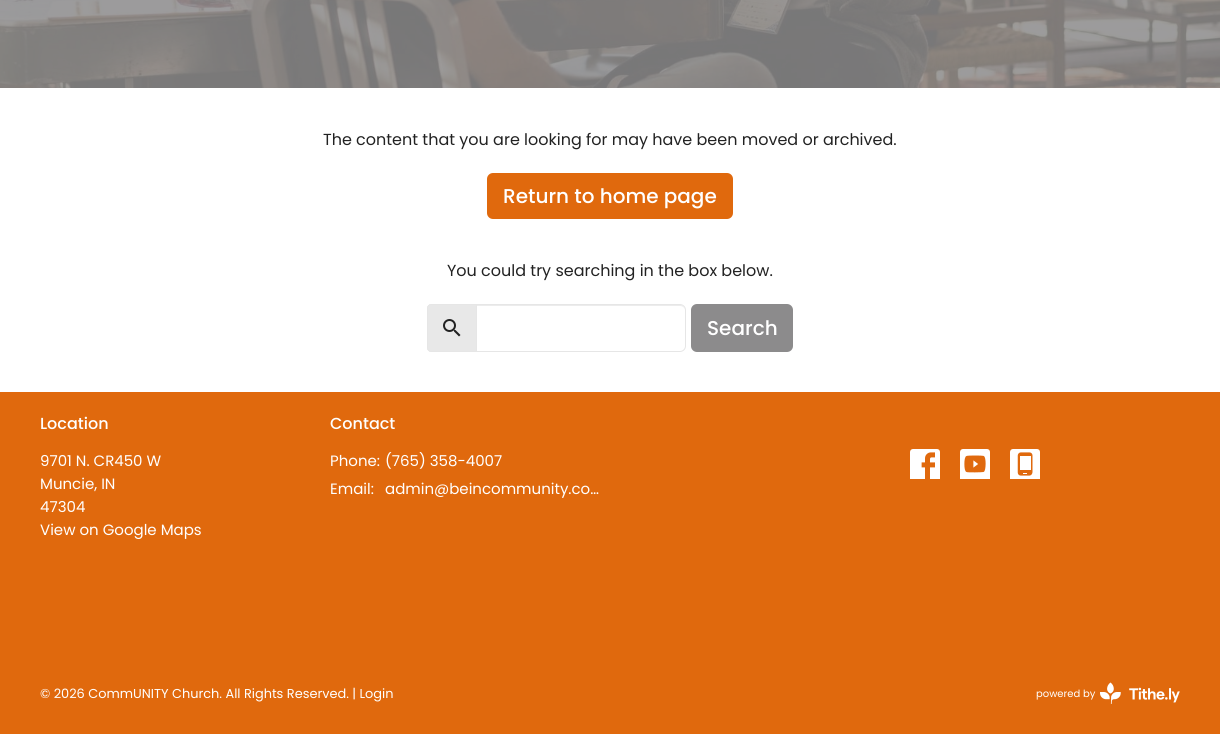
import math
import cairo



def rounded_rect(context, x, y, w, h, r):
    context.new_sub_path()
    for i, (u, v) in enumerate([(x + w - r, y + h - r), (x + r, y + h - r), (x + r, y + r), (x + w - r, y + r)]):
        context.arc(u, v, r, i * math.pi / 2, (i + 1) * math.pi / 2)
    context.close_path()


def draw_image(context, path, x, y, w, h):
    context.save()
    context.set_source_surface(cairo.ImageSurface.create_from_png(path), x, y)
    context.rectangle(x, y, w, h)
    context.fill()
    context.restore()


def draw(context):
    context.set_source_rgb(1, 1, 1)
    context.paint()
    draw_image(context, "images/1.png", 0, 0, 1220, 88)
    context.set_source_rgb(224 / 255, 105 / 255, 13 / 255)
    rounded_rect(context, 487, 173, 246, 46, 6)
    context.fill()
    context.set_source_rgb(232 / 255, 232 / 255, 232 / 255)
    context.new_path()
    context.move_to(431, 304)
    context.line_to(476, 304)
    context.line_to(476, 352)
    context.line_to(431, 352)
    context.curve_to(429, 352, 427, 350, 427, 348)
    context.line_to(427, 308)
    context.curve_to(427, 306, 429, 304, 431, 304)
    context.close_path()
    context.fill()
    context.set_source_rgb(230 / 255, 230 / 255, 230 / 255)
    context.set_fill_rule(cairo.FillRule.EVEN_ODD)
    context.new_path()
    context.move_to(431, 304)
    context.line_to(476, 304)
    context.line_to(476, 352)
    context.line_to(431, 352)
    context.curve_to(429, 352, 427, 350, 427, 348)
    context.line_to(427, 308)
    context.curve_to(427, 306, 429, 304, 431, 304)
    context.close_path()
    context.move_to(431, 305)
    context.line_to(476, 305)
    context.line_to(476, 351)
    context.line_to(431, 351)
    context.curve_to(429, 351, 428, 350, 428, 348)
    context.line_to(428, 308)
    context.curve_to(428, 306, 429, 305, 431, 305)
    context.close_path()
    context.fill()
    draw_image(context, "images/2.png", 443, 319, 18, 18)
    context.set_source_rgb(236 / 255, 236 / 255, 236 / 255)
    context.set_fill_rule(cairo.FillRule.WINDING)
    context.new_path()
    context.move_to(477, 306)
    context.line_to(680, 306)
    context.curve_to(683, 306, 685, 308, 685, 311)
    context.curve_to(685, 308, 684, 306, 681, 305)
    context.line_to(477, 305)
    context.close_path()
    context.fill()
    context.new_path()
    context.move_to(476.5, 304.5)
    context.line_to(680, 304.5)
    context.curve_to(683, 304.5, 685.5, 307, 685.5, 310)
    context.line_to(685.5, 346)
    context.curve_to(685.5, 349, 683, 351.5, 680, 351.5)
    context.line_to(476.5, 351.5)
    context.close_path()
    context.set_source_rgb(230 / 255, 230 / 255, 230 / 255)
    context.set_line_width(1)
    context.stroke()
    context.set_source_rgb(140 / 255, 139 / 255, 140 / 255)
    rounded_rect(context, 691, 304, 102, 48, 6)
    context.fill()
    context.set_source_rgb(224 / 255, 105 / 255, 13 / 255)
    context.rectangle(0, 392, 1220, 342)
    context.fill()
    draw_image(context, "images/3.png", 910, 449, 30, 30)
    draw_image(context, "images/4.png", 960, 449, 30, 30)
    draw_image(context, "images/5.png", 1010, 449, 30, 30)
    draw_image(context, "images/6.png", 1100, 682, 80, 22)
    context.select_font_face("Poppins")
    context.set_font_size(16)
    context.set_source_rgb(34 / 255, 34 / 255, 34 / 255)
    context.move_to(323, 145)
    context.show_text("The content that you are looking for may have been moved or archived.")
    context.select_font_face("Poppins Medium")
    context.set_font_size(20)
    context.set_source_rgb(1, 1, 1)
    context.move_to(503, 203)
    context.show_text("Return to home page")
    context.select_font_face("Poppins")
    context.set_font_size(16)
    context.set_source_rgb(34 / 255, 34 / 255, 34 / 255)
    context.move_to(447, 276)
    context.show_text("You could try searching in the box below.")
    context.select_font_face("Poppins Medium")
    context.set_font_size(20)
    context.set_source_rgb(1, 1, 1)
    context.move_to(707, 335)
    context.show_text("Search")
    context.set_font_size(16)
    context.move_to(40, 429)
    context.show_text("Location")
    context.select_font_face("Poppins")
    context.set_font_size(15)
    context.move_to(40, 466)
    context.show_text("9701 N. CR450 W")
    context.move_to(40, 489)
    context.show_text("Muncie, IN")
    context.move_to(40, 512)
    context.show_text("47304")
    context.move_to(40, 535)
    context.show_text("View on Google Maps")
    context.select_font_face("Poppins Medium")
    context.set_font_size(16)
    context.move_to(330, 429)
    context.show_text("Contact")
    context.select_font_face("Poppins")
    context.set_font_size(15)
    context.move_to(330, 466)
    context.show_text("Phone:")
    context.move_to(385, 466)
    context.show_text("(765) 358-4007")
    context.move_to(330, 494)
    context.show_text("Email:")
    context.move_to(385, 494)
    context.show_text("admin@beincommunity.co…")
    context.set_font_size(12.9)
    context.move_to(40, 698)
    context.show_text("© 2026 CommUNITY Church. All Rights Reserved. | Login")
    context.set_font_size(10)
    context.move_to(1036, 697)
    context.show_text("powered by")


surface = cairo.ImageSurface(cairo.Format.RGB24, 1220, 734)
context = cairo.Context(surface)
options = cairo.FontOptions()
options.set_hint_metrics(cairo.HintMetrics.OFF)
options.set_hint_style(cairo.HintStyle.NONE)
context.set_font_options(options)
context.set_miter_limit(4)
draw(context)
surface.write_to_png("out.png")
